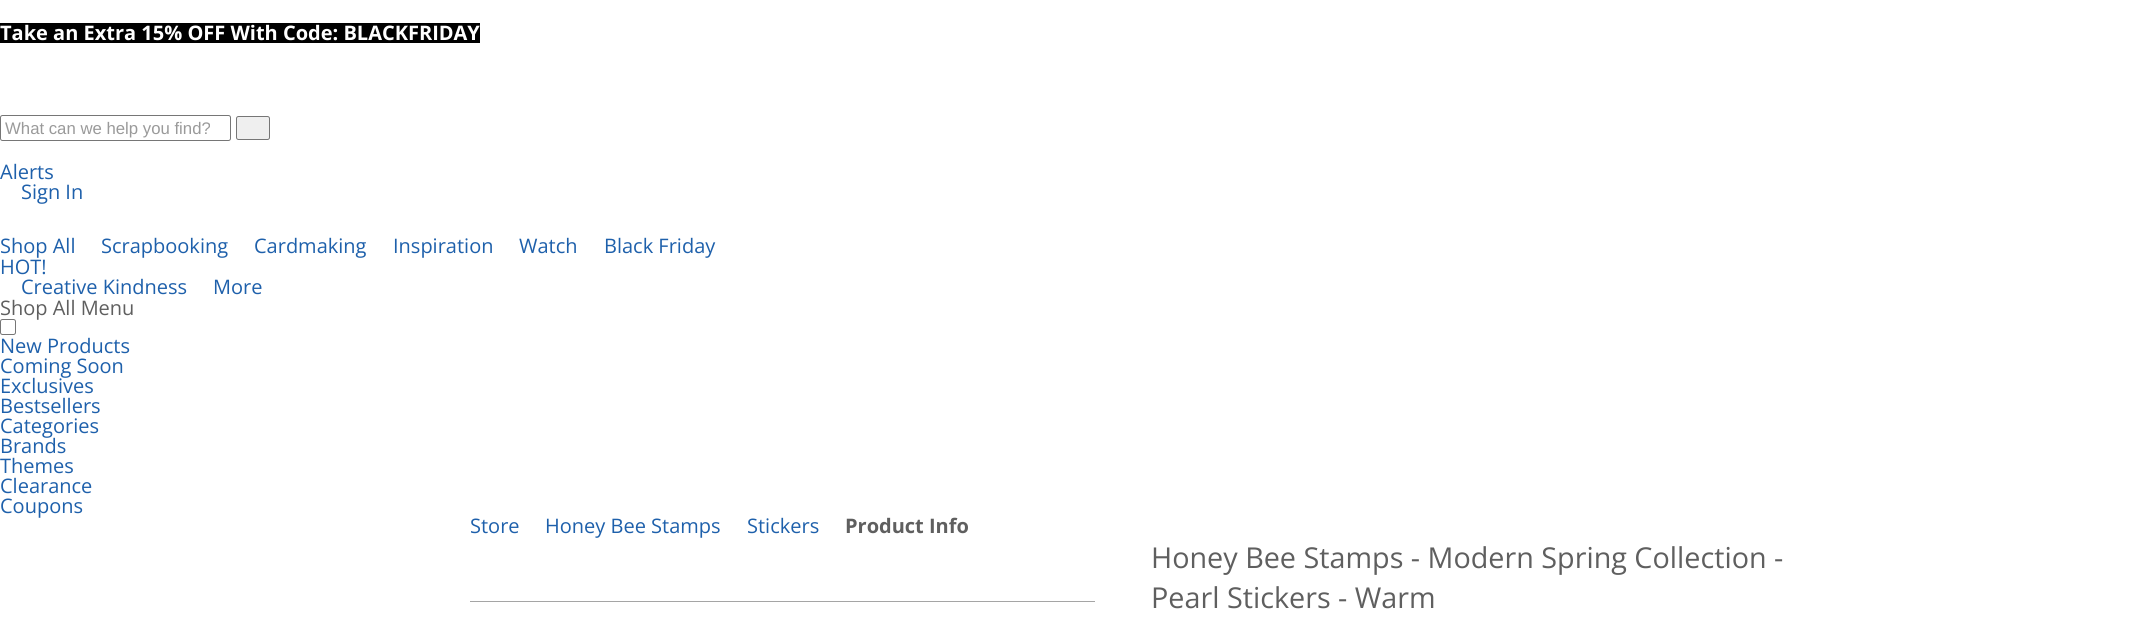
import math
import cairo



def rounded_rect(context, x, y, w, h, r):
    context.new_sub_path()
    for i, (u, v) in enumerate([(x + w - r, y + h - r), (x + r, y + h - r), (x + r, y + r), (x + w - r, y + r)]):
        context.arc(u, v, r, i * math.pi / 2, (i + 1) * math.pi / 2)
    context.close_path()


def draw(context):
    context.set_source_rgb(1, 1, 1)
    context.paint()
    context.set_source_rgb(0, 0, 0)
    context.rectangle(0, 23, 480, 20)
    context.fill()
    rounded_rect(context, 0.5, 115.5, 230, 25, 2)
    context.set_source_rgb(118 / 255, 118 / 255, 118 / 255)
    context.set_line_width(1)
    context.stroke()
    context.set_source_rgb(239 / 255, 239 / 255, 239 / 255)
    rounded_rect(context, 236.5, 116.5, 33, 23, 2)
    context.fill_preserve()
    context.set_source_rgb(118 / 255, 118 / 255, 118 / 255)
    context.stroke()
    context.set_source_rgb(165 / 255, 165 / 255, 165 / 255)
    context.rectangle(470, 601, 625, 1)
    context.fill()
    context.select_font_face("Open Sans", cairo.FontSlant.NORMAL, cairo.FontWeight.BOLD)
    context.set_font_size(20)
    context.set_source_rgb(1, 1, 1)
    context.move_to(0, 40)
    context.show_text("Take an Extra 15% OFF With Code: BLACKFRIDAY")
    context.select_font_face("Liberation Sans")
    context.set_font_size(16.75)
    context.set_source_rgb(154 / 255, 154 / 255, 154 / 255)
    context.move_to(5, 134)
    context.show_text("What can we help you find?")
    context.select_font_face("Open Sans")
    context.set_font_size(20)
    context.set_source_rgb(30 / 255, 96 / 255, 171 / 255)
    context.move_to(0, 179)
    context.show_text("Alerts")
    context.move_to(21, 199)
    context.show_text("Sign In")
    context.move_to(0, 253)
    context.show_text("Shop All")
    context.move_to(604, 253)
    context.show_text("Black Friday")
    context.move_to(0, 274)
    context.show_text("HOT!")
    context.move_to(101, 253)
    context.show_text("Scrapbooking")
    context.move_to(254, 253)
    context.show_text("Cardmaking")
    context.move_to(393, 253)
    context.show_text("Inspiration")
    context.move_to(519, 253)
    context.show_text("Watch")
    context.move_to(21, 294)
    context.show_text("Creative Kindness")
    context.move_to(213, 294)
    context.show_text("More")
    context.set_source_rgb(95 / 255, 95 / 255, 95 / 255)
    context.move_to(0, 315)
    context.show_text("Shop All Menu")
    rounded_rect(context, 0.5, 319.5, 15, 15, 2)
    context.set_source_rgb(118 / 255, 118 / 255, 118 / 255)
    context.stroke()
    context.set_source_rgb(30 / 255, 96 / 255, 171 / 255)
    context.move_to(0, 353)
    context.show_text("New Products")
    context.move_to(0, 373)
    context.show_text("Coming Soon")
    context.move_to(0, 393)
    context.show_text("Exclusives")
    context.move_to(0, 413)
    context.show_text("Bestsellers")
    context.move_to(0, 433)
    context.show_text("Categories")
    context.move_to(0, 453)
    context.show_text("Brands")
    context.move_to(0, 473)
    context.show_text("Themes")
    context.move_to(0, 493)
    context.show_text("Clearance")
    context.move_to(0, 513)
    context.show_text("Coupons")
    context.move_to(470, 533)
    context.show_text("Store")
    context.move_to(545, 533)
    context.show_text("Honey Bee Stamps")
    context.move_to(747, 533)
    context.show_text("Stickers")
    context.select_font_face("Open Sans", cairo.FontSlant.NORMAL, cairo.FontWeight.BOLD)
    context.set_source_rgb(95 / 255, 95 / 255, 95 / 255)
    context.move_to(845, 533)
    context.show_text("Product Info")
    context.select_font_face("Open Sans")
    context.set_font_size(28.75)
    context.move_to(1151, 568)
    context.show_text("Honey Bee Stamps - Modern Spring Collection -")
    context.move_to(1151, 608)
    context.show_text("Pearl Stickers - Warm")


surface = cairo.ImageSurface(cairo.Format.RGB24, 2140, 627)
context = cairo.Context(surface)
options = cairo.FontOptions()
options.set_hint_metrics(cairo.HintMetrics.OFF)
options.set_hint_style(cairo.HintStyle.NONE)
context.set_font_options(options)
context.set_miter_limit(4)
draw(context)
surface.write_to_png("out.png")
